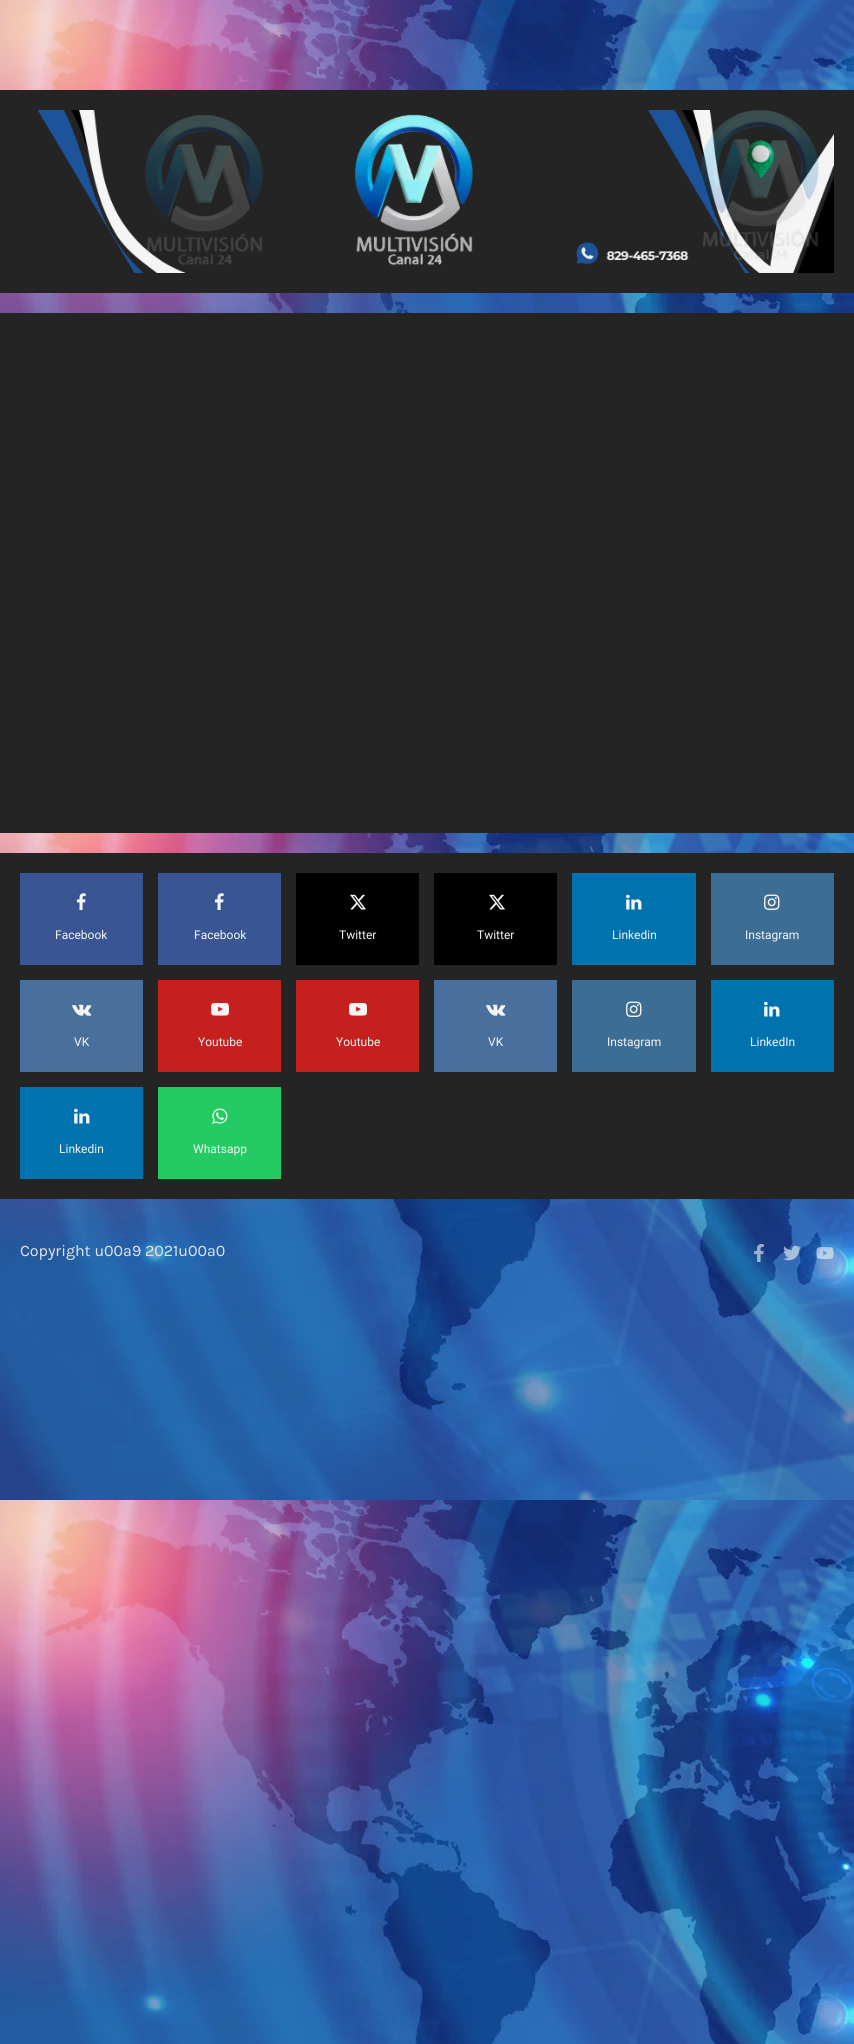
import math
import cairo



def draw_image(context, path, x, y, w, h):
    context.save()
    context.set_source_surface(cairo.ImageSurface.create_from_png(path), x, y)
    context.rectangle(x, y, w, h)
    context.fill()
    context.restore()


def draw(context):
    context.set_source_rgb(1, 1, 1)
    context.paint()
    draw_image(context, "images/1.png", 0, 0, 854, 2044)
    context.set_source_rgb(36 / 255, 36 / 255, 36 / 255)
    context.rectangle(0, 90, 854, 203)
    context.fill()
    draw_image(context, "images/2.png", 37, 110, 797, 163)
    context.rectangle(0, 313, 854, 520)
    context.fill()
    context.rectangle(0, 853, 854, 346)
    context.fill()
    context.set_source_rgb(57 / 255, 85 / 255, 147 / 255)
    context.rectangle(20, 873, 123, 92)
    context.fill()
    draw_image(context, "images/3.png", 76, 893, 10, 17)
    context.rectangle(158, 873, 123, 92)
    context.fill()
    draw_image(context, "images/3.png", 214, 893, 10, 17)
    context.set_source_rgb(0, 0, 0)
    context.rectangle(296, 873, 123, 92)
    context.fill()
    draw_image(context, "images/4.png", 350, 894, 16, 16)
    context.rectangle(434, 873, 123, 92)
    context.fill()
    draw_image(context, "images/4.png", 489, 894, 16, 16)
    context.set_source_rgb(0, 114 / 255, 174 / 255)
    context.rectangle(572, 873, 124, 92)
    context.fill()
    draw_image(context, "images/5.png", 626, 894, 16, 16)
    context.set_source_rgb(60 / 255, 109 / 255, 149 / 255)
    context.rectangle(711, 873, 123, 92)
    context.fill()
    draw_image(context, "images/6.png", 764, 894, 16, 16)
    context.set_source_rgb(73 / 255, 112 / 255, 156 / 255)
    context.rectangle(20, 980, 123, 92)
    context.fill()
    draw_image(context, "images/7.png", 72, 1004, 20, 12)
    context.set_source_rgb(197 / 255, 31 / 255, 30 / 255)
    context.rectangle(158, 980, 123, 92)
    context.fill()
    draw_image(context, "images/8.png", 211, 1002, 18, 14)
    context.rectangle(296, 980, 123, 92)
    context.fill()
    draw_image(context, "images/8.png", 349, 1002, 18, 14)
    context.set_source_rgb(73 / 255, 112 / 255, 156 / 255)
    context.rectangle(434, 980, 123, 92)
    context.fill()
    draw_image(context, "images/7.png", 486, 1004, 20, 12)
    context.set_source_rgb(60 / 255, 109 / 255, 149 / 255)
    context.rectangle(572, 980, 124, 92)
    context.fill()
    draw_image(context, "images/6.png", 626, 1001, 16, 16)
    context.set_source_rgb(0, 114 / 255, 174 / 255)
    context.rectangle(711, 980, 123, 92)
    context.fill()
    draw_image(context, "images/5.png", 764, 1001, 16, 16)
    context.rectangle(20, 1087, 123, 92)
    context.fill()
    draw_image(context, "images/5.png", 74, 1108, 16, 16)
    context.set_source_rgb(36 / 255, 203 / 255, 98 / 255)
    context.rectangle(158, 1087, 123, 92)
    context.fill()
    draw_image(context, "images/9.png", 212, 1108, 16, 16)
    draw_image(context, "images/10.png", 754, 1244, 10, 18)
    draw_image(context, "images/11.png", 783, 1245, 18, 16)
    draw_image(context, "images/12.png", 816, 1247, 18, 12)
    context.select_font_face("Roboto")
    context.set_font_size(12)
    context.set_source_rgb(245 / 255, 245 / 255, 245 / 255)
    context.move_to(55, 939)
    context.show_text("Facebook")
    context.move_to(194, 939)
    context.show_text("Facebook")
    context.move_to(339, 939)
    context.show_text("Twitter")
    context.move_to(477, 939)
    context.show_text("Twitter")
    context.move_to(612, 939)
    context.show_text("Linkedin")
    context.move_to(745, 939)
    context.show_text("Instagram")
    context.move_to(74, 1046)
    context.show_text("VK")
    context.move_to(198, 1046)
    context.show_text("Youtube")
    context.move_to(336, 1046)
    context.show_text("Youtube")
    context.move_to(488, 1046)
    context.show_text("VK")
    context.move_to(607, 1046)
    context.show_text("Instagram")
    context.move_to(750, 1046)
    context.show_text("LinkedIn")
    context.move_to(59, 1153)
    context.show_text("Linkedin")
    context.move_to(193, 1153)
    context.show_text("Whatsapp")
    context.select_font_face("Karla")
    context.set_font_size(16)
    context.set_source_rgb(232 / 255, 232 / 255, 232 / 255)
    context.move_to(20, 1256)
    context.show_text("Copyright u00a9 2021u00a0")


surface = cairo.ImageSurface(cairo.Format.RGB24, 854, 2044)
context = cairo.Context(surface)
options = cairo.FontOptions()
options.set_hint_metrics(cairo.HintMetrics.OFF)
options.set_hint_style(cairo.HintStyle.NONE)
context.set_font_options(options)
context.set_miter_limit(4)
draw(context)
surface.write_to_png("out.png")
